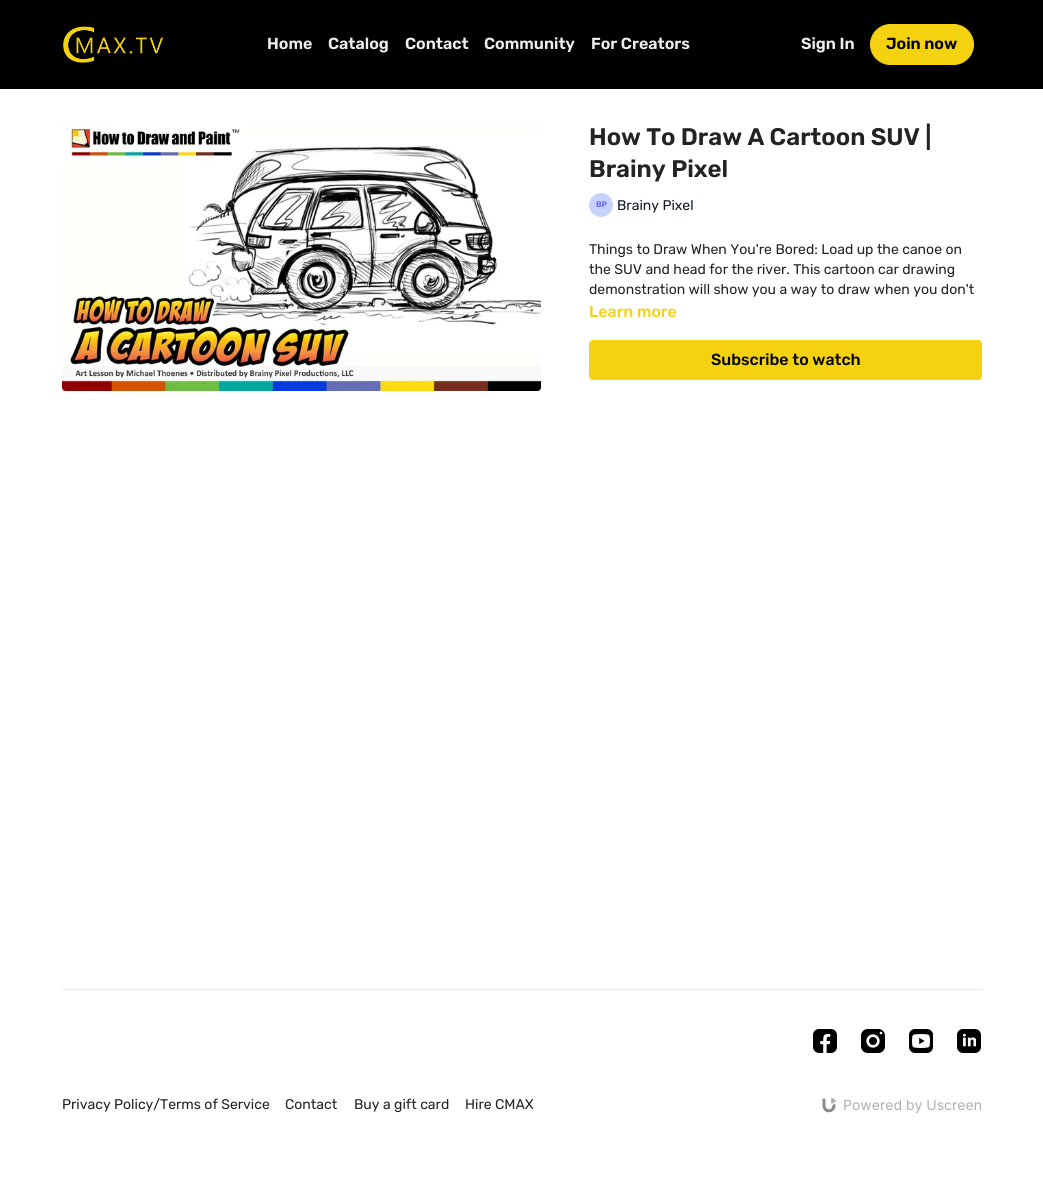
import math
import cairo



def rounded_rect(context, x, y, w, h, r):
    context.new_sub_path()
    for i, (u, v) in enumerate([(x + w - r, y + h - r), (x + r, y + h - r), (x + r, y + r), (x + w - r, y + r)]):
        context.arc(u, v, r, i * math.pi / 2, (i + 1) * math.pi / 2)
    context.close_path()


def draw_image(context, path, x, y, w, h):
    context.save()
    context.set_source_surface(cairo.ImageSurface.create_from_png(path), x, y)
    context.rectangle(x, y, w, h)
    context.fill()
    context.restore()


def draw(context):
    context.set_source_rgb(1, 1, 1)
    context.paint()
    context.set_source_rgb(0, 0, 0)
    context.rectangle(0, 0, 1043, 89)
    context.fill()
    draw_image(context, "images/1.png", 63, 26, 100, 37)
    context.set_source_rgb(245 / 255, 210 / 255, 15 / 255)
    rounded_rect(context, 870.5, 24.5, 103, 40, 20)
    context.fill_preserve()
    context.set_line_width(1)
    context.stroke()
    draw_image(context, "images/2.png", 62, 121, 479, 270)
    context.set_source_rgb(199 / 255, 210 / 255, 254 / 255)
    context.arc(601, 205, 12, 0, 2 * math.pi)
    context.fill()
    context.set_source_rgb(245 / 255, 210 / 255, 15 / 255)
    rounded_rect(context, 589, 340, 393, 40, 4)
    context.fill()
    context.set_source_rgb(233 / 255, 233 / 255, 233 / 255)
    context.rectangle(62, 989, 920, 1)
    context.fill()
    draw_image(context, "images/3.png", 813, 1029, 24, 24)
    draw_image(context, "images/4.png", 861, 1029, 24, 24)
    draw_image(context, "images/5.png", 909, 1029, 24, 24)
    draw_image(context, "images/6.png", 957, 1029, 24, 24)
    draw_image(context, "images/7.png", 822, 1097, 15, 16)
    context.select_font_face("Rubik SemiBold")
    context.set_font_size(16)
    context.set_source_rgb(238 / 255, 238 / 255, 238 / 255)
    context.move_to(267, 49)
    context.show_text("Home")
    context.move_to(328, 49)
    context.show_text("Catalog")
    context.move_to(405, 49)
    context.show_text("Contact")
    context.move_to(484, 49)
    context.show_text("Community")
    context.move_to(591, 49)
    context.show_text("For Creators")
    context.move_to(801, 49)
    context.show_text("Sign In")
    context.set_source_rgb(0, 0, 0)
    context.move_to(886, 49)
    context.show_text("Join now")
    context.set_font_size(24)
    context.set_source_rgb(35 / 255, 35 / 255, 35 / 255)
    context.move_to(589, 145)
    context.show_text("How To Draw A Cartoon SUV |")
    context.move_to(589, 177)
    context.show_text("Brainy Pixel")
    context.set_font_size(8)
    context.set_source_rgb(99 / 255, 102 / 255, 241 / 255)
    context.move_to(596, 207)
    context.show_text("BP")
    context.select_font_face("Rubik")
    context.set_font_size(14)
    context.set_source_rgb(17 / 255, 24 / 255, 39 / 255)
    context.move_to(617, 210)
    context.show_text("Brainy Pixel")
    context.set_source_rgb(35 / 255, 35 / 255, 35 / 255)
    context.move_to(589, 254)
    context.show_text("Things to Draw When You're Bored: Load up the canoe on")
    context.move_to(589, 274)
    context.show_text("the SUV and head for the river. This cartoon car drawing")
    context.move_to(589, 294)
    context.show_text("demonstration will show you a way to draw when you don't")
    context.select_font_face("Rubik Medium")
    context.set_font_size(16)
    context.set_source_rgb(245 / 255, 210 / 255, 15 / 255)
    context.move_to(589, 317)
    context.show_text("Learn more")
    context.set_source_rgb(0, 0, 0)
    context.move_to(711, 365)
    context.show_text("Subscribe to watch")
    context.select_font_face("Rubik")
    context.set_font_size(14)
    context.set_source_rgb(35 / 255, 35 / 255, 35 / 255)
    context.move_to(62, 1109)
    context.show_text("Privacy Policy/Terms of Service")
    context.move_to(285, 1109)
    context.show_text("Contact")
    context.move_to(354, 1109)
    context.show_text("Buy a gift card")
    context.move_to(465, 1109)
    context.show_text("Hire CMAX")
    context.select_font_face("Inter")
    context.set_source_rgb(176 / 255, 176 / 255, 176 / 255)
    context.move_to(843, 1110)
    context.show_text("Powered by Uscreen")


surface = cairo.ImageSurface(cairo.Format.RGB24, 1043, 1180)
context = cairo.Context(surface)
options = cairo.FontOptions()
options.set_hint_metrics(cairo.HintMetrics.OFF)
options.set_hint_style(cairo.HintStyle.NONE)
context.set_font_options(options)
context.set_miter_limit(4)
draw(context)
surface.write_to_png("out.png")
